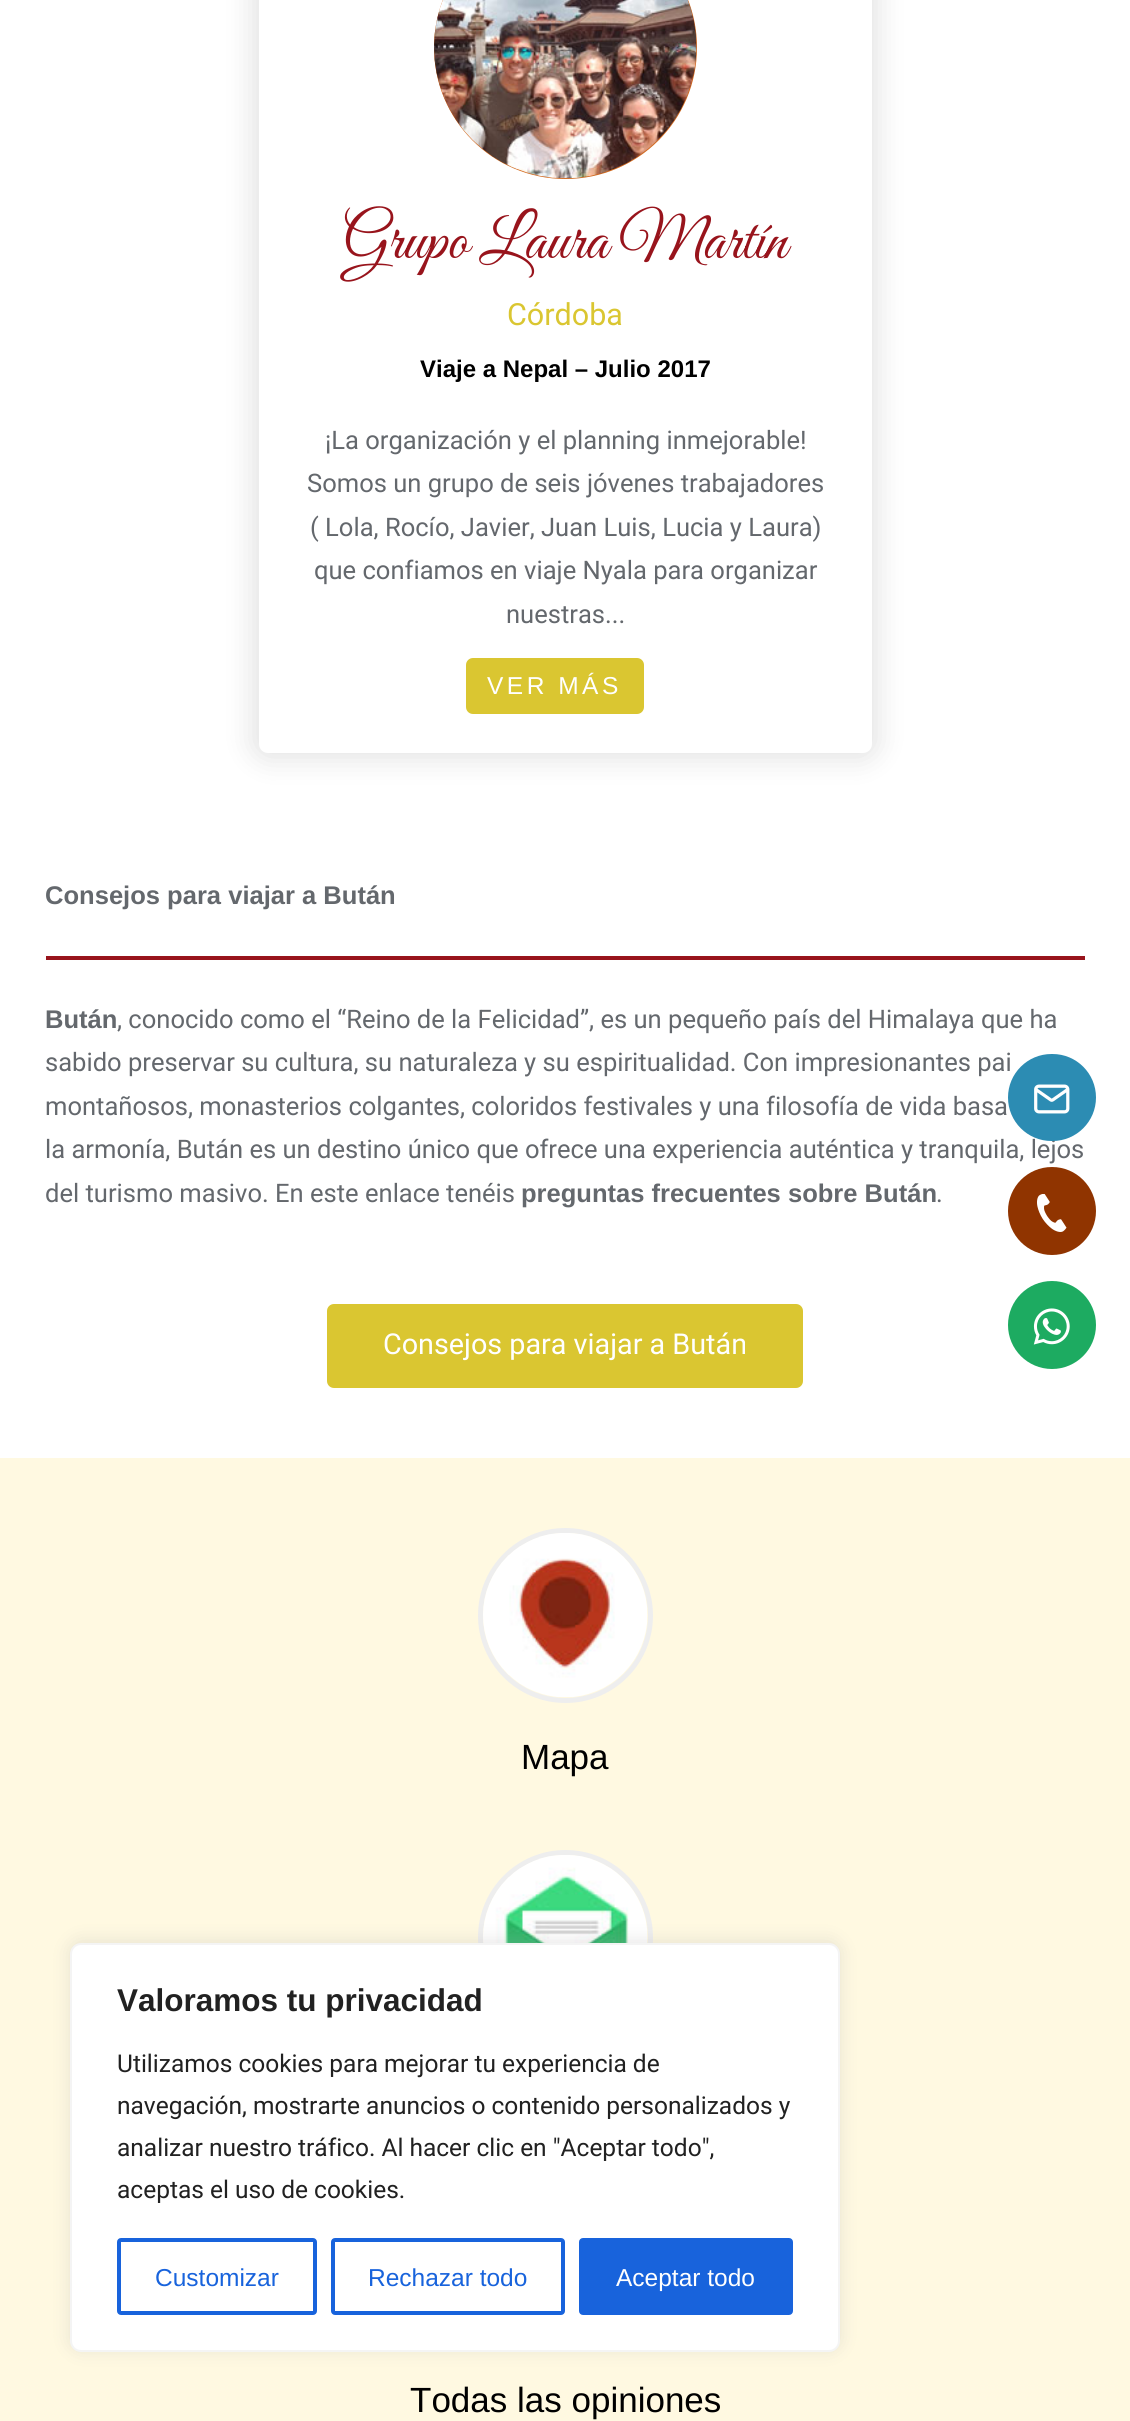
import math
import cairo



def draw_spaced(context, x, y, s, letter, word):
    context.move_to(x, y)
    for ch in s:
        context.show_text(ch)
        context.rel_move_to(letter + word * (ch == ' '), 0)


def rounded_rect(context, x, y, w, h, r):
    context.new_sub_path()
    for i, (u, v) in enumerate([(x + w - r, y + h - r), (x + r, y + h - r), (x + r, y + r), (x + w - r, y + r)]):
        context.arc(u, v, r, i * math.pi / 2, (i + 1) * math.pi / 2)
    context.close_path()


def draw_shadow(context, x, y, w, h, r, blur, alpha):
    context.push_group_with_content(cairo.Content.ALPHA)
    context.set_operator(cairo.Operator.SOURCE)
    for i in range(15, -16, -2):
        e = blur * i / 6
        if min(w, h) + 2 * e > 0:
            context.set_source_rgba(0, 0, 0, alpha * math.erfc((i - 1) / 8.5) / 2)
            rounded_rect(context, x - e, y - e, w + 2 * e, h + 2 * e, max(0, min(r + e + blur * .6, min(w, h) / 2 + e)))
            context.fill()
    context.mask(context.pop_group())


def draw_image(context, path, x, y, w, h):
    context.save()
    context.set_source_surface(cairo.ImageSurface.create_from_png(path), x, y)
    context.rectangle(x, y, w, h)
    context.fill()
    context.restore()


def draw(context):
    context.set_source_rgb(1, 1, 1)
    context.paint()
    context.set_source_rgb(0, 0, 0)
    draw_shadow(context, 250, -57, 630, 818, 18, 13, 0.1)
    context.set_source_rgb(1, 1, 1)
    rounded_rect(context, 259, -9, 613, 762, 9)
    context.fill()
    context.set_source_rgb(210 / 255, 105 / 255, 30 / 255)
    context.arc(565.5, 47.5, 131.5, 0, 2 * math.pi)
    context.fill()
    draw_image(context, "images/1.png", 434, 0, 263, 179)
    context.set_source_rgb(218 / 255, 198 / 255, 49 / 255)
    rounded_rect(context, 466, 658, 178, 56, 7)
    context.fill()
    context.set_source_rgb(152 / 255, 20 / 255, 28 / 255)
    context.rectangle(46, 956, 1039, 4)
    context.fill()
    context.set_source_rgb(218 / 255, 198 / 255, 49 / 255)
    rounded_rect(context, 327, 1304, 476, 84, 7)
    context.fill()
    context.set_source_rgb(1, 249 / 255, 225 / 255)
    context.rectangle(0, 1458, 1130, 963)
    context.fill()
    context.arc(565.5, 1615.5, 85, 0, 2 * math.pi)
    context.set_source_rgb(238 / 255, 238 / 255, 238 / 255)
    context.set_line_width(5)
    context.stroke()
    draw_image(context, "images/2.png", 483, 1533, 165, 164)
    context.arc(565.5, 1937.5, 85, 0, 2 * math.pi)
    context.stroke()
    draw_image(context, "images/3.png", 483, 1855, 165, 88)
    context.set_source_rgb(144 / 255, 52 / 255, 0)
    context.arc(1052, 1211, 44, 0, 2 * math.pi)
    context.fill()
    draw_image(context, "images/5.png", 1037, 1194, 30, 38)
    context.set_source_rgb(29 / 255, 171 / 255, 97 / 255)
    context.arc(1052, 1325, 44, 0, 2 * math.pi)
    context.fill()
    draw_image(context, "images/6.png", 1033, 1308, 37, 37)
    context.set_source_rgb(172 / 255, 171 / 255, 171 / 255)
    draw_shadow(context, 70, 1941, 770, 409, 11, 9, 0.3)
    context.set_source_rgb(1, 1, 1)
    rounded_rect(context, 71, 1944, 768, 407, 10)
    context.fill_preserve()
    context.set_source_rgb(244 / 255, 244 / 255, 244 / 255)
    context.set_line_width(2)
    context.stroke()
    rounded_rect(context, 119, 2240, 196, 73, 2)
    context.set_source_rgb(24 / 255, 99 / 255, 220 / 255)
    context.set_line_width(4)
    context.stroke()
    rounded_rect(context, 333, 2240, 230, 73, 2)
    context.stroke()
    rounded_rect(context, 581, 2240, 210, 73, 2)
    context.fill_preserve()
    context.stroke()
    context.select_font_face("Great Vibes")
    context.set_font_size(63)
    context.set_source_rgb(152 / 255, 20 / 255, 28 / 255)
    context.move_to(343, 258)
    context.show_text("Grupo Laura Martín")
    context.select_font_face("Roboto")
    context.set_font_size(30.5)
    context.set_source_rgb(218 / 255, 198 / 255, 49 / 255)
    context.move_to(507, 325)
    context.show_text("Córdoba")
    context.select_font_face("Liberation Sans", cairo.FontSlant.NORMAL, cairo.FontWeight.BOLD)
    context.set_font_size(24)
    context.set_source_rgb(0, 0, 0)
    context.move_to(420, 377)
    context.show_text("Viaje a Nepal – Julio 2017")
    context.select_font_face("Roboto")
    context.set_font_size(25.55)
    context.set_source_rgb(100 / 255, 104 / 255, 109 / 255)
    context.move_to(325, 449)
    context.show_text("¡La organización y el planning inmejorable!")
    context.move_to(307, 492)
    context.show_text("Somos un grupo de seis jóvenes trabajadores")
    context.move_to(310, 536)
    context.show_text("( Lola, Rocío, Javier, Juan Luis, Lucia y Laura)")
    context.move_to(314, 579)
    context.show_text("que confiamos en viaje Nyala para organizar")
    context.move_to(506, 623)
    context.show_text("nuestras...")
    context.select_font_face("Liberation Sans")
    context.set_font_size(24.5)
    context.set_source_rgb(1, 1, 1)
    draw_spaced(context, 487, 694, "VER MÁS", 3.5, 0)
    context.select_font_face("Liberation Sans", cairo.FontSlant.NORMAL, cairo.FontWeight.BOLD)
    context.set_font_size(25.55)
    context.set_source_rgb(100 / 255, 104 / 255, 109 / 255)
    context.move_to(45, 904)
    context.show_text("Consejos para viajar a Bután")
    context.move_to(45, 1028)
    context.show_text("Bután")
    context.select_font_face("Roboto")
    context.move_to(117, 1028)
    context.show_text(", conocido como el “Reino de la Felicidad”, es un pequeño país del Himalaya que ha")
    context.move_to(45, 1071)
    context.show_text("sabido preservar su cultura, su naturaleza y su espiritualidad. Con impresionantes pai")
    context.move_to(45, 1115)
    context.show_text("montañosos, monasterios colgantes, coloridos festivales y una filosofía de vida basa")
    context.move_to(45, 1158)
    context.show_text("la armonía, Bután es un destino único que ofrece una experiencia auténtica y tranquila, lejos")
    context.move_to(45, 1202)
    context.show_text("del turismo masivo. En este enlace tenéis")
    context.select_font_face("Liberation Sans", cairo.FontSlant.NORMAL, cairo.FontWeight.BOLD)
    context.move_to(521, 1202)
    context.show_text("preguntas frecuentes sobre Bután")
    context.select_font_face("Roboto")
    context.move_to(936, 1202)
    context.show_text(".")
    context.set_font_size(28.75)
    context.set_source_rgb(1, 1, 1)
    context.move_to(383, 1354)
    context.show_text("Consejos para viajar a Bután")
    context.select_font_face("Liberation Sans")
    context.set_font_size(35)
    context.set_source_rgb(0, 0, 0)
    context.move_to(521, 1769)
    context.show_text("Mapa")
    context.move_to(410, 2412)
    context.show_text("Todas las opiniones")
    context.set_source_rgb(44 / 255, 140 / 255, 179 / 255)
    rounded_rect(context, 1008, 1054, 88, 87, 43.5)
    context.fill()
    draw_image(context, "images/4.png", 1034, 1084, 36, 30)
    context.select_font_face("Liberation Sans", cairo.FontSlant.NORMAL, cairo.FontWeight.BOLD)
    context.set_font_size(31.5)
    context.set_source_rgb(33 / 255, 33 / 255, 33 / 255)
    context.move_to(117, 2011)
    context.show_text("Valoramos tu privacidad")
    context.select_font_face("Roboto")
    context.set_font_size(24.5)
    context.move_to(117, 2072)
    context.show_text("Utilizamos cookies para mejorar tu experiencia de")
    context.move_to(117, 2114)
    context.show_text("navegación, mostrarte anuncios o contenido personalizados y")
    context.move_to(117, 2156)
    context.show_text("analizar nuestro tráfico. Al hacer clic en \"Aceptar todo\",")
    context.move_to(117, 2198)
    context.show_text("aceptas el uso de cookies.")
    context.select_font_face("Liberation Sans")
    context.set_source_rgb(24 / 255, 99 / 255, 220 / 255)
    context.move_to(155, 2286)
    context.show_text("Customizar")
    context.move_to(368, 2286)
    context.show_text("Rechazar todo")
    context.set_source_rgb(1, 1, 1)
    context.move_to(616, 2286)
    context.show_text("Aceptar todo")


surface = cairo.ImageSurface(cairo.Format.RGB24, 1130, 2421)
context = cairo.Context(surface)
options = cairo.FontOptions()
options.set_hint_metrics(cairo.HintMetrics.OFF)
options.set_hint_style(cairo.HintStyle.NONE)
context.set_font_options(options)
context.set_miter_limit(4)
draw(context)
surface.write_to_png("out.png")
